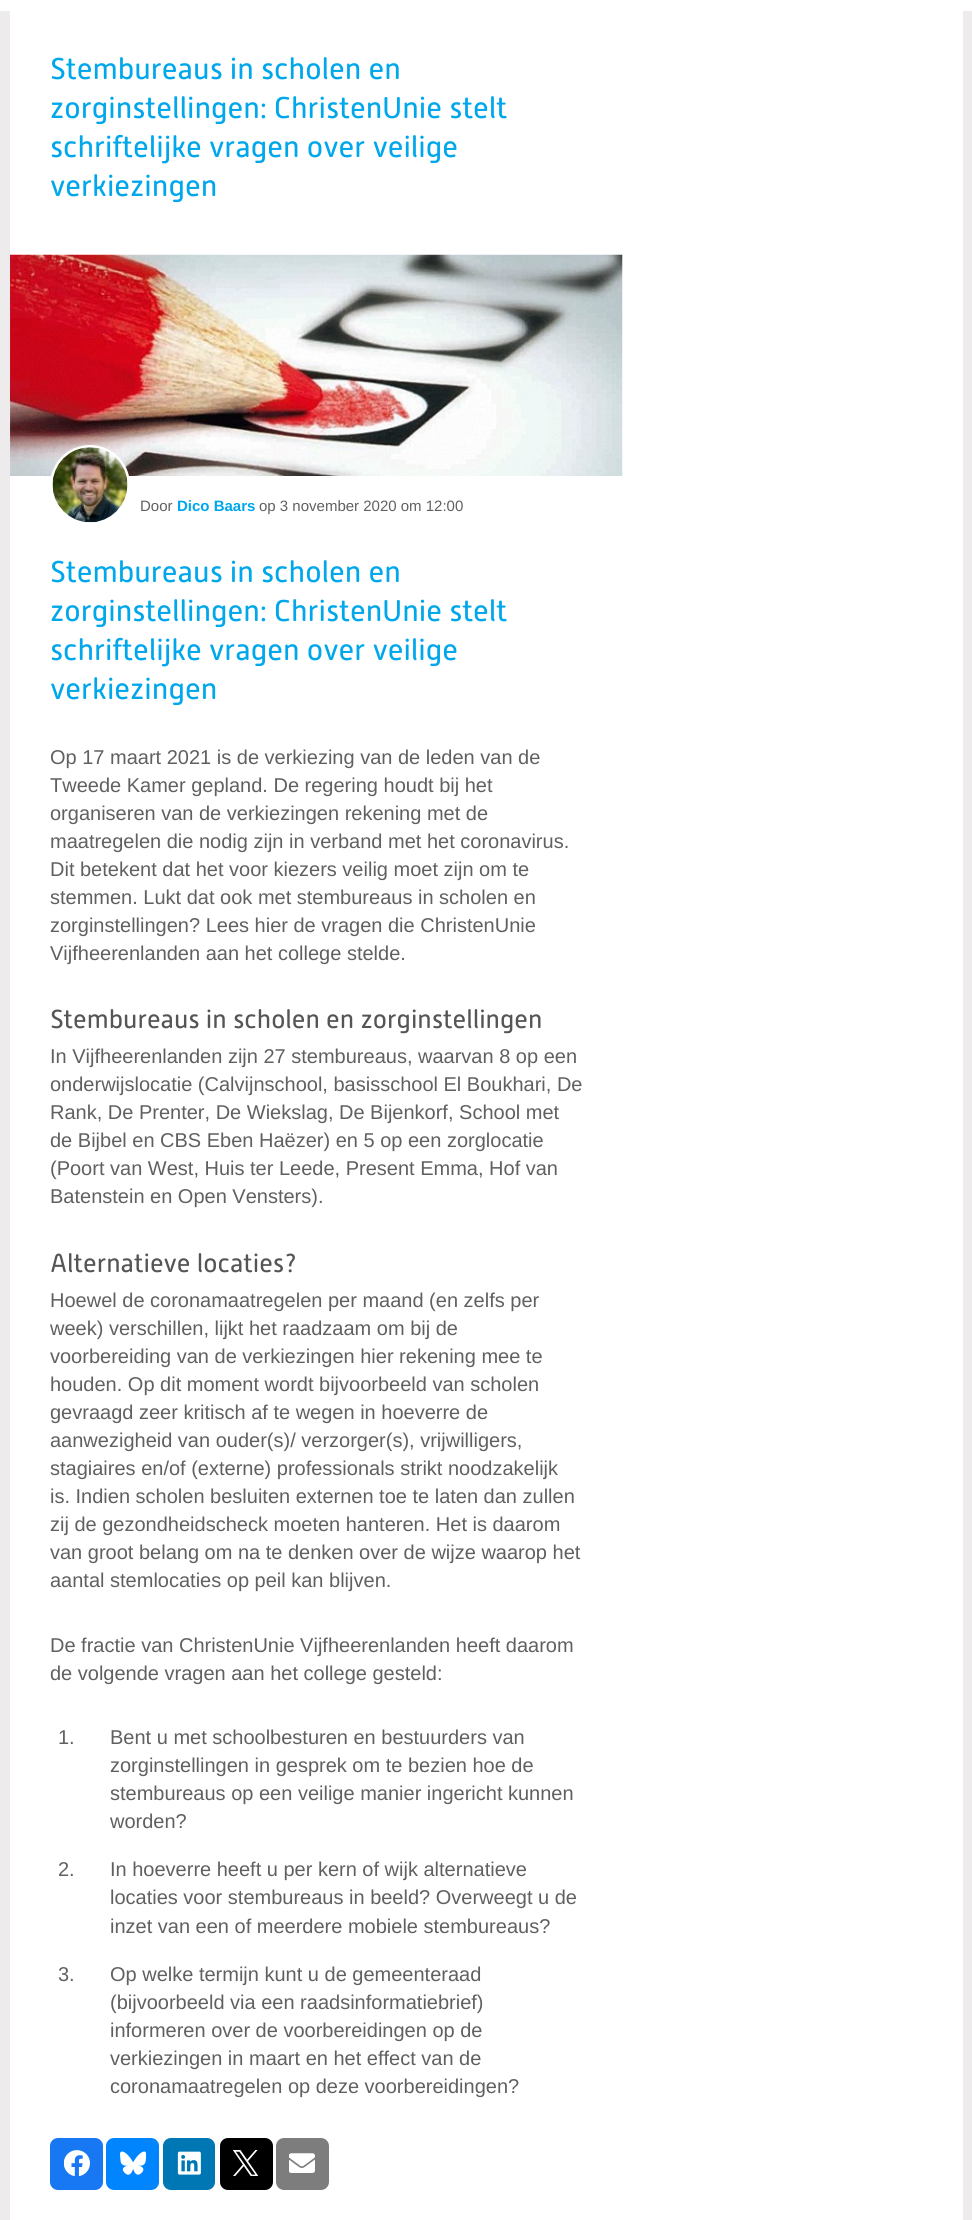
import math
import cairo



def rounded_rect(context, x, y, w, h, r):
    context.new_sub_path()
    for i, (u, v) in enumerate([(x + w - r, y + h - r), (x + r, y + h - r), (x + r, y + r), (x + w - r, y + r)]):
        context.arc(u, v, r, i * math.pi / 2, (i + 1) * math.pi / 2)
    context.close_path()


def draw_image(context, path, x, y, w, h):
    context.save()
    context.set_source_surface(cairo.ImageSurface.create_from_png(path), x, y)
    context.rectangle(x, y, w, h)
    context.fill()
    context.restore()


def draw(context):
    context.set_source_rgb(237 / 255, 235 / 255, 235 / 255)
    context.paint()
    context.set_source_rgb(1, 1, 1)
    context.rectangle(0, 0, 972, 11)
    context.fill()
    context.rectangle(10, 11, 953, 2209)
    context.fill()
    draw_image(context, "images/1.png", 10, 254, 613, 222)
    context.arc(90, 485, 38.5, 0, 2 * math.pi)
    context.set_line_width(3)
    context.stroke()
    draw_image(context, "images/2.png", 52, 447, 76, 76)
    context.set_source_rgb(24 / 255, 119 / 255, 242 / 255)
    rounded_rect(context, 50, 2138, 53, 52, 8)
    context.fill()
    draw_image(context, "images/3.png", 64, 2150, 26, 26)
    context.set_source_rgb(0, 133 / 255, 1)
    rounded_rect(context, 106, 2138, 53, 52, 8)
    context.fill()
    draw_image(context, "images/4.png", 120, 2151, 26, 24)
    context.set_source_rgb(0, 119 / 255, 181 / 255)
    rounded_rect(context, 163, 2138, 52, 52, 8)
    context.fill()
    draw_image(context, "images/5.png", 177, 2151, 24, 24)
    context.set_source_rgb(0, 0, 0)
    rounded_rect(context, 220, 2138, 53, 52, 8)
    context.fill()
    draw_image(context, "images/6.png", 233, 2150, 26, 26)
    context.set_source_rgb(125 / 255, 125 / 255, 125 / 255)
    rounded_rect(context, 276, 2138, 53, 52, 8)
    context.fill()
    draw_image(context, "images/7.png", 289, 2153, 26, 20)
    context.select_font_face("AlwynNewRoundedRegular")
    context.set_font_size(30)
    context.set_source_rgb(0, 167 / 255, 235 / 255)
    context.move_to(50, 79)
    context.show_text("Stembureaus in scholen en")
    context.move_to(50, 118)
    context.show_text("zorginstellingen: ChristenUnie stelt")
    context.move_to(50, 157)
    context.show_text("schriftelijke vragen over veilige")
    context.move_to(50, 196)
    context.show_text("verkiezingen")
    context.select_font_face("Liberation Sans")
    context.set_font_size(15)
    context.set_source_rgb(96 / 255, 96 / 255, 96 / 255)
    context.move_to(140, 511)
    context.show_text("Door")
    context.select_font_face("Liberation Sans", cairo.FontSlant.NORMAL, cairo.FontWeight.BOLD)
    context.set_source_rgb(0, 167 / 255, 235 / 255)
    context.move_to(177, 511)
    context.show_text("Dico Baars")
    context.select_font_face("Liberation Sans")
    context.set_source_rgb(96 / 255, 96 / 255, 96 / 255)
    context.move_to(259, 511)
    context.show_text("op 3 november 2020 om 12:00")
    context.select_font_face("AlwynNewRoundedRegular")
    context.set_font_size(30)
    context.set_source_rgb(0, 167 / 255, 235 / 255)
    context.move_to(50, 582)
    context.show_text("Stembureaus in scholen en")
    context.move_to(50, 621)
    context.show_text("zorginstellingen: ChristenUnie stelt")
    context.move_to(50, 660)
    context.show_text("schriftelijke vragen over veilige")
    context.move_to(50, 699)
    context.show_text("verkiezingen")
    context.select_font_face("Liberation Sans")
    context.set_font_size(20)
    context.set_source_rgb(96 / 255, 96 / 255, 96 / 255)
    context.move_to(50, 764)
    context.show_text("Op 17 maart 2021 is de verkiezing van de leden van de")
    context.move_to(50, 792)
    context.show_text("Tweede Kamer gepland. De regering houdt bij het")
    context.move_to(50, 820)
    context.show_text("organiseren van de verkiezingen rekening met de")
    context.move_to(50, 848)
    context.show_text("maatregelen die nodig zijn in verband met het coronavirus.")
    context.move_to(50, 876)
    context.show_text("Dit betekent dat het voor kiezers veilig moet zijn om te")
    context.move_to(50, 904)
    context.show_text("stemmen. Lukt dat ook met stembureaus in scholen en")
    context.move_to(50, 932)
    context.show_text("zorginstellingen? Lees hier de vragen die ChristenUnie")
    context.move_to(50, 960)
    context.show_text("Vijfheerenlanden aan het college stelde.")
    context.select_font_face("AlwynNewRoundedRegular")
    context.set_font_size(26)
    context.set_source_rgb(85 / 255, 85 / 255, 85 / 255)
    context.move_to(50, 1028)
    context.show_text("Stembureaus in scholen en zorginstellingen")
    context.select_font_face("Liberation Sans")
    context.set_font_size(20)
    context.set_source_rgb(96 / 255, 96 / 255, 96 / 255)
    context.move_to(50, 1063)
    context.show_text("In Vijfheerenlanden zijn 27 stembureaus, waarvan 8 op een")
    context.move_to(50, 1091)
    context.show_text("onderwijslocatie (Calvijnschool, basisschool El Boukhari, De")
    context.move_to(50, 1119)
    context.show_text("Rank, De Prenter, De Wiekslag, De Bijenkorf, School met")
    context.move_to(50, 1147)
    context.show_text("de Bijbel en CBS Eben Haëzer) en 5 op een zorglocatie")
    context.move_to(50, 1175)
    context.show_text("(Poort van West, Huis ter Leede, Present Emma, Hof van")
    context.move_to(50, 1203)
    context.show_text("Batenstein en Open Vensters).")
    context.select_font_face("AlwynNewRoundedRegular")
    context.set_font_size(26)
    context.set_source_rgb(85 / 255, 85 / 255, 85 / 255)
    context.move_to(50, 1272)
    context.show_text("Alternatieve locaties?")
    context.select_font_face("Liberation Sans")
    context.set_font_size(20)
    context.set_source_rgb(96 / 255, 96 / 255, 96 / 255)
    context.move_to(50, 1307)
    context.show_text("Hoewel de coronamaatregelen per maand (en zelfs per")
    context.move_to(50, 1335)
    context.show_text("week) verschillen, lijkt het raadzaam om bij de")
    context.move_to(50, 1363)
    context.show_text("voorbereiding van de verkiezingen hier rekening mee te")
    context.move_to(50, 1391)
    context.show_text("houden. Op dit moment wordt bijvoorbeeld van scholen")
    context.move_to(50, 1419)
    context.show_text("gevraagd zeer kritisch af te wegen in hoeverre de")
    context.move_to(50, 1447)
    context.show_text("aanwezigheid van ouder(s)/ verzorger(s), vrijwilligers,")
    context.move_to(50, 1475)
    context.show_text("stagiaires en/of (externe) professionals strikt noodzakelijk")
    context.move_to(50, 1503)
    context.show_text("is. Indien scholen besluiten externen toe te laten dan zullen")
    context.move_to(50, 1531)
    context.show_text("zij de gezondheidscheck moeten hanteren. Het is daarom")
    context.move_to(50, 1559)
    context.show_text("van groot belang om na te denken over de wijze waarop het")
    context.move_to(50, 1587)
    context.show_text("aantal stemlocaties op peil kan blijven.")
    context.move_to(50, 1652)
    context.show_text("De fractie van ChristenUnie Vijfheerenlanden heeft daarom")
    context.move_to(50, 1680)
    context.show_text("de volgende vragen aan het college gesteld:")
    context.move_to(58, 1744)
    context.show_text("1.")
    context.move_to(110, 1744)
    context.show_text("Bent u met schoolbesturen en bestuurders van")
    context.move_to(110, 1772)
    context.show_text("zorginstellingen in gesprek om te bezien hoe de")
    context.move_to(110, 1800)
    context.show_text("stembureaus op een veilige manier ingericht kunnen")
    context.move_to(110, 1828)
    context.show_text("worden?")
    context.move_to(58, 1876)
    context.show_text("2.")
    context.move_to(110, 1876)
    context.show_text("In hoeverre heeft u per kern of wijk alternatieve")
    context.move_to(110, 1904)
    context.show_text("locaties voor stembureaus in beeld? Overweegt u de")
    context.move_to(110, 1933)
    context.show_text("inzet van een of meerdere mobiele stembureaus?")
    context.move_to(58, 1981)
    context.show_text("3.")
    context.move_to(110, 1981)
    context.show_text("Op welke termijn kunt u de gemeenteraad")
    context.move_to(110, 2009)
    context.show_text("(bijvoorbeeld via een raadsinformatiebrief)")
    context.move_to(110, 2037)
    context.show_text("informeren over de voorbereidingen op de")
    context.move_to(110, 2065)
    context.show_text("verkiezingen in maart en het effect van de")
    context.move_to(110, 2093)
    context.show_text("coronamaatregelen op deze voorbereidingen?")


surface = cairo.ImageSurface(cairo.Format.RGB24, 972, 2220)
context = cairo.Context(surface)
options = cairo.FontOptions()
options.set_hint_metrics(cairo.HintMetrics.OFF)
options.set_hint_style(cairo.HintStyle.NONE)
context.set_font_options(options)
context.set_miter_limit(4)
draw(context)
surface.write_to_png("out.png")
